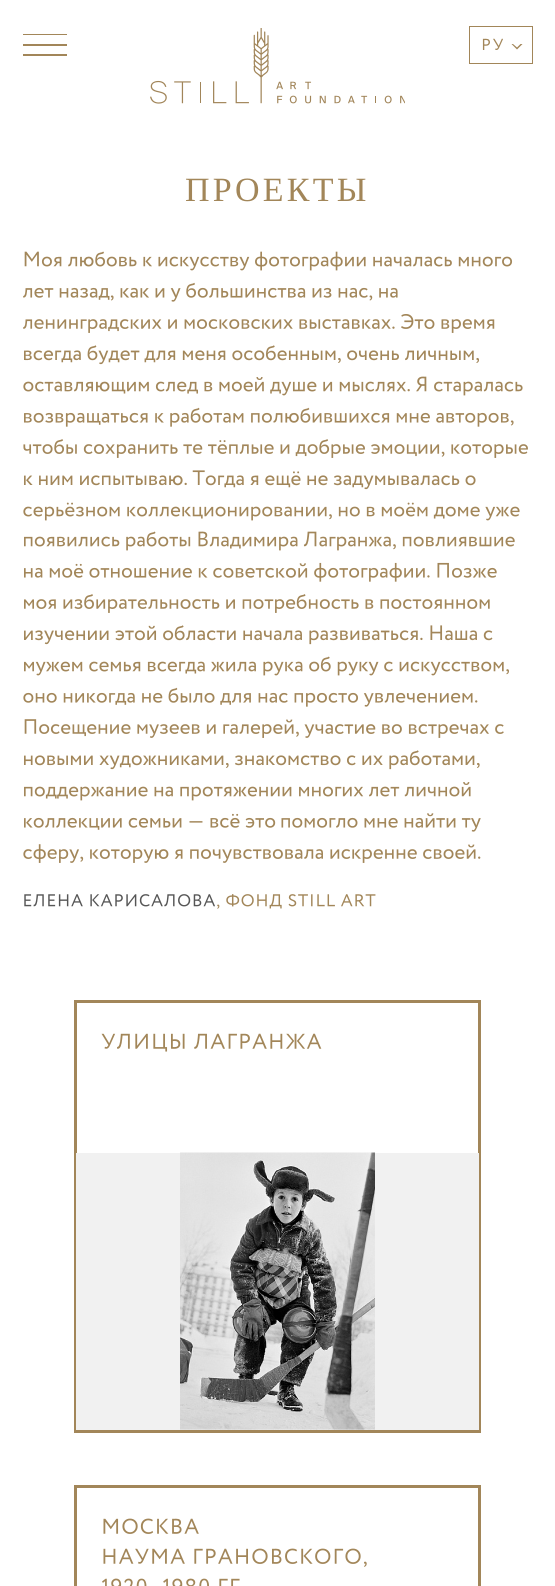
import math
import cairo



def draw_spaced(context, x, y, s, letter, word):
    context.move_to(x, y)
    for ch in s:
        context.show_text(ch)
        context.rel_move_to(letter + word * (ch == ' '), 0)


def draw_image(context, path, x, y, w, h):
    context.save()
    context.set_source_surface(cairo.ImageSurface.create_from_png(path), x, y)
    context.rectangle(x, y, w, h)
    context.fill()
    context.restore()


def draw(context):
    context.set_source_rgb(1, 1, 1)
    context.paint()
    context.set_source_rgb(162 / 255, 134 / 255, 89 / 255)
    context.rectangle(23, 34, 44, 1)
    context.fill()
    context.rectangle(23, 44, 44, 2)
    context.fill()
    context.rectangle(23, 54, 44, 2)
    context.fill()
    context.rectangle(469.5, 26.5, 63, 37)
    context.set_line_width(1)
    context.stroke()
    draw_image(context, "images/1.png", 482, 38, 21, 12)
    context.new_path()
    context.move_to(522.5, 44)
    context.line_to(517, 49.5)
    context.line_to(517, 47.5)
    context.line_to(520.5, 44)
    context.close_path()
    context.move_to(517, 49.5)
    context.line_to(511.5, 44)
    context.line_to(513, 44)
    context.line_to(517, 47.5)
    context.close_path()
    context.fill()
    draw_image(context, "images/2.png", 150, 28, 255, 76)
    draw_image(context, "images/3.png", 24, 251, 489, 20)
    draw_image(context, "images/4.png", 23, 282, 375, 20)
    draw_image(context, "images/5.png", 23, 314, 472, 19)
    draw_image(context, "images/6.png", 24, 345, 455, 20)
    draw_image(context, "images/7.png", 23, 376, 500, 20)
    draw_image(context, "images/8.png", 24, 407, 490, 20)
    draw_image(context, "images/9.png", 23, 439, 505, 19)
    draw_image(context, "images/10.png", 24, 470, 452, 20)
    draw_image(context, "images/11.png", 23, 502, 497, 19)
    draw_image(context, "images/12.png", 24, 531, 491, 20)
    draw_image(context, "images/13.png", 24, 562, 473, 20)
    draw_image(context, "images/14.png", 24, 594, 466, 19)
    draw_image(context, "images/15.png", 24, 625, 469, 20)
    draw_image(context, "images/16.png", 24, 656, 485, 20)
    draw_image(context, "images/17.png", 23, 687, 455, 20)
    draw_image(context, "images/18.png", 24, 719, 480, 19)
    draw_image(context, "images/19.png", 24, 750, 456, 20)
    draw_image(context, "images/20.png", 24, 782, 447, 19)
    draw_image(context, "images/21.png", 24, 813, 252, 17)
    draw_image(context, "images/22.png", 281, 813, 200, 19)
    draw_image(context, "images/23.png", 23, 844, 458, 19)
    draw_image(context, "images/24.png", 24, 894, 191, 13)
    draw_image(context, "images/25.png", 217, 894, 159, 15)
    context.rectangle(75.5, 1001.5, 404, 430)
    context.set_line_width(3)
    context.stroke()
    draw_image(context, "images/26.png", 101, 1033, 221, 19)
    context.set_source_rgb(241 / 255, 241 / 255, 241 / 255)
    context.rectangle(76, 1153, 403, 277)
    context.fill()
    draw_image(context, "images/27.png", 180, 1152, 195, 278)
    context.rectangle(75.5, 1486.5, 404, 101)
    context.set_source_rgb(162 / 255, 134 / 255, 89 / 255)
    context.stroke()
    draw_image(context, "images/28.png", 103, 1518, 96, 16)
    draw_image(context, "images/29.png", 103, 1548, 264, 19)
    draw_image(context, "images/30.png", 102, 1578, 138, 8)
    context.select_font_face("Liberation Serif")
    context.set_font_size(34)
    draw_spaced(context, 185, 201, "ПРОЕКТЫ", 3.25, 0)


surface = cairo.ImageSurface(cairo.Format.RGB24, 555, 1586)
context = cairo.Context(surface)
options = cairo.FontOptions()
options.set_hint_metrics(cairo.HintMetrics.OFF)
options.set_hint_style(cairo.HintStyle.NONE)
context.set_font_options(options)
context.set_miter_limit(4)
draw(context)
surface.write_to_png("out.png")
